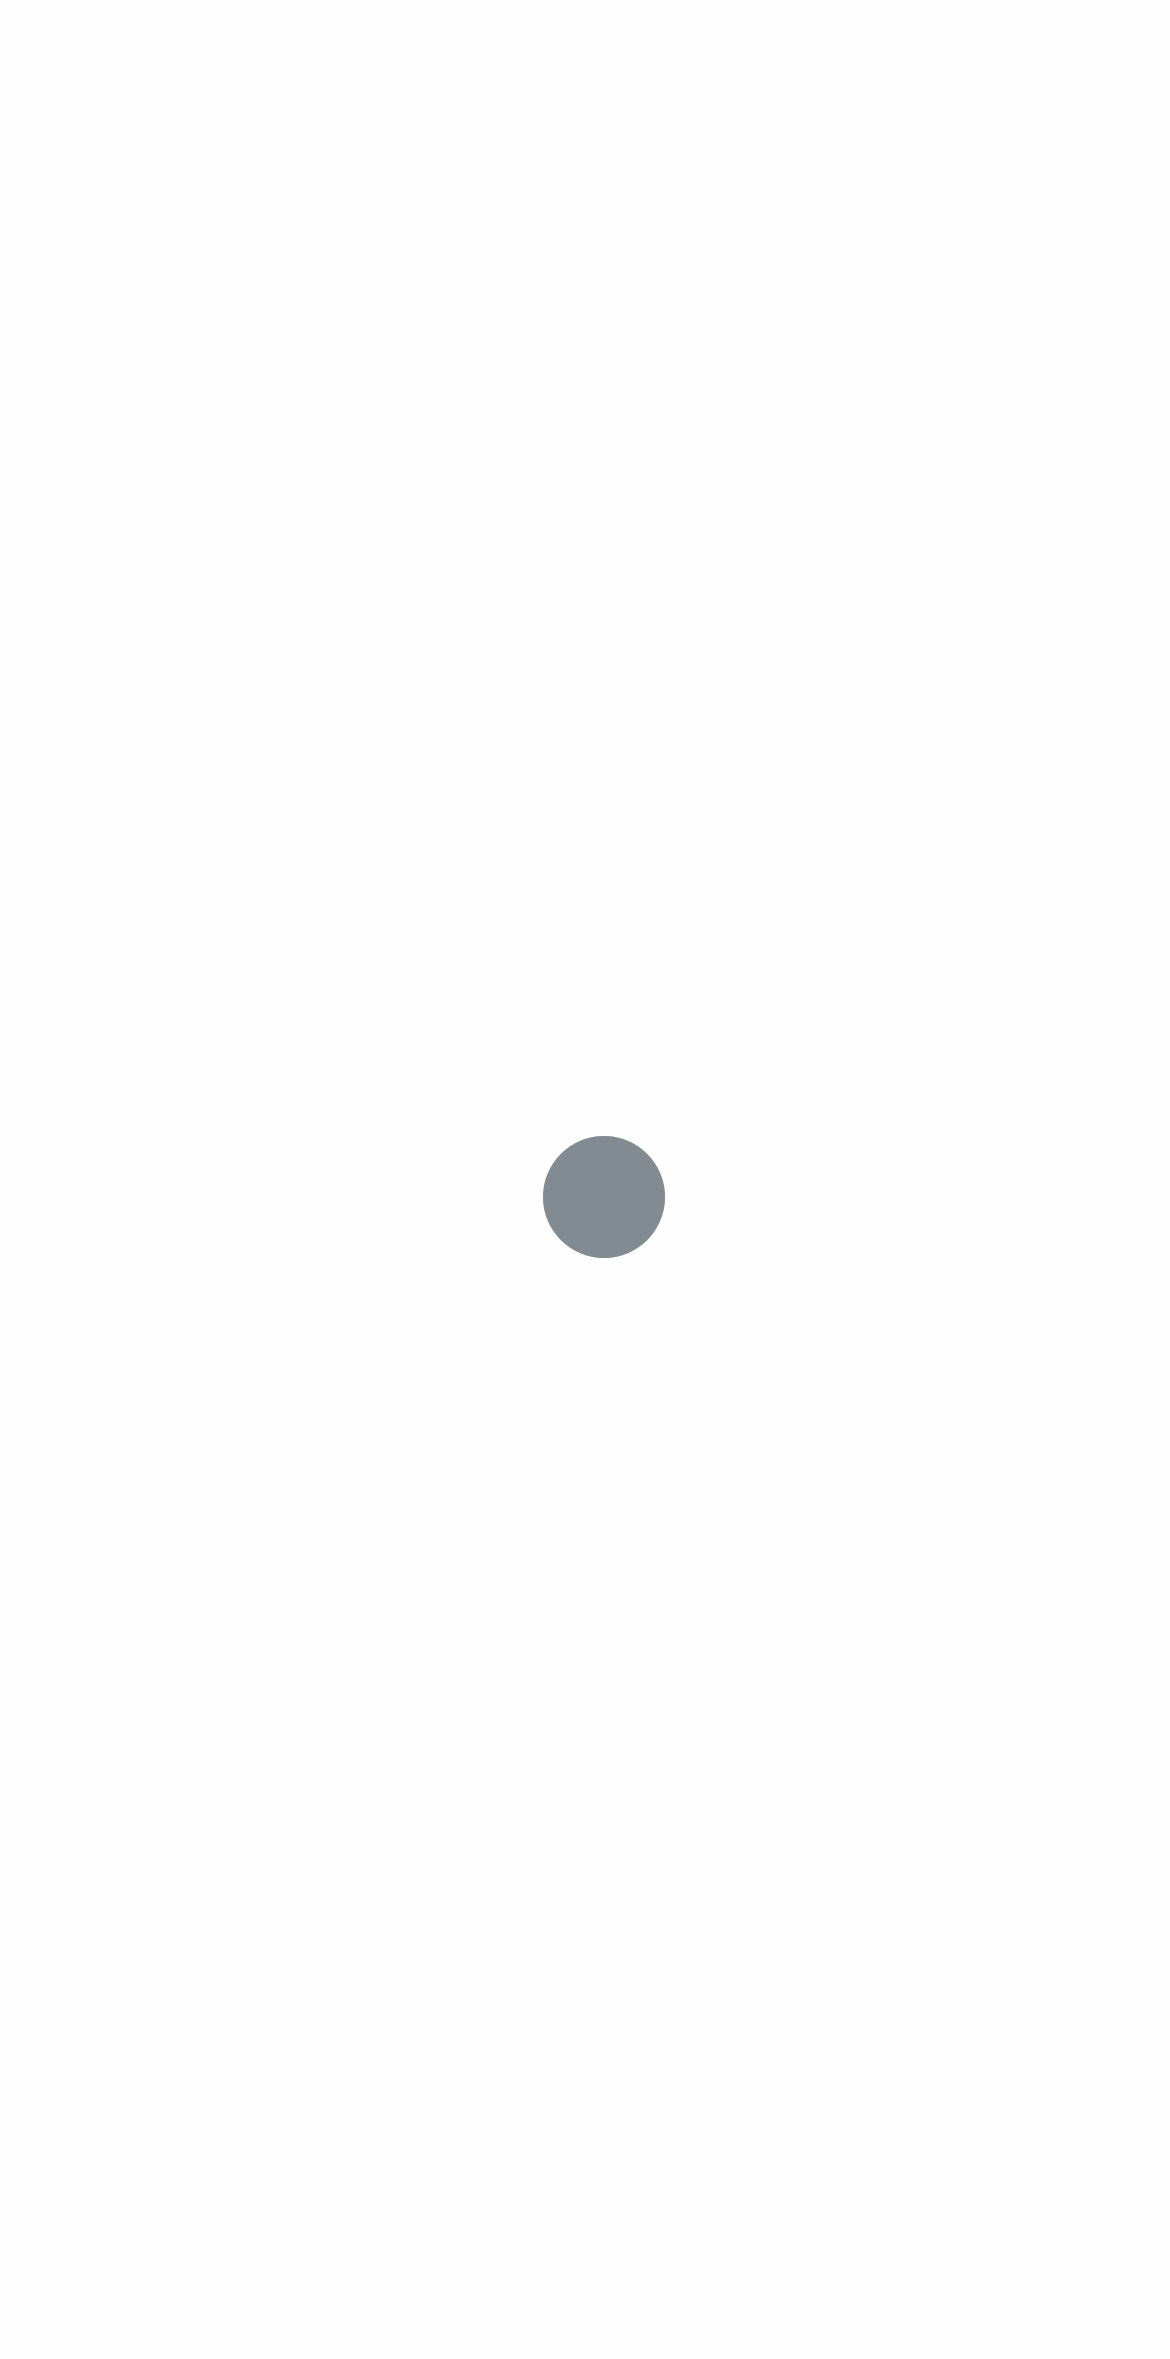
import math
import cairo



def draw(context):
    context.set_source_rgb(254 / 255, 254 / 255, 254 / 255)
    context.paint()
    context.set_source_rgb(166 / 255, 172 / 255, 177 / 255)
    context.arc(604, 1197, 61, 0, 2 * math.pi)
    context.fill()
    context.set_source_rgba(108 / 255, 117 / 255, 125 / 255, 0.6)
    context.arc(604, 1197, 61, 0, 2 * math.pi)
    context.fill()


surface = cairo.ImageSurface(cairo.Format.RGB24, 1170, 2359)
context = cairo.Context(surface)
options = cairo.FontOptions()
options.set_hint_metrics(cairo.HintMetrics.OFF)
options.set_hint_style(cairo.HintStyle.NONE)
context.set_font_options(options)
context.set_miter_limit(4)
draw(context)
surface.write_to_png("out.png")
